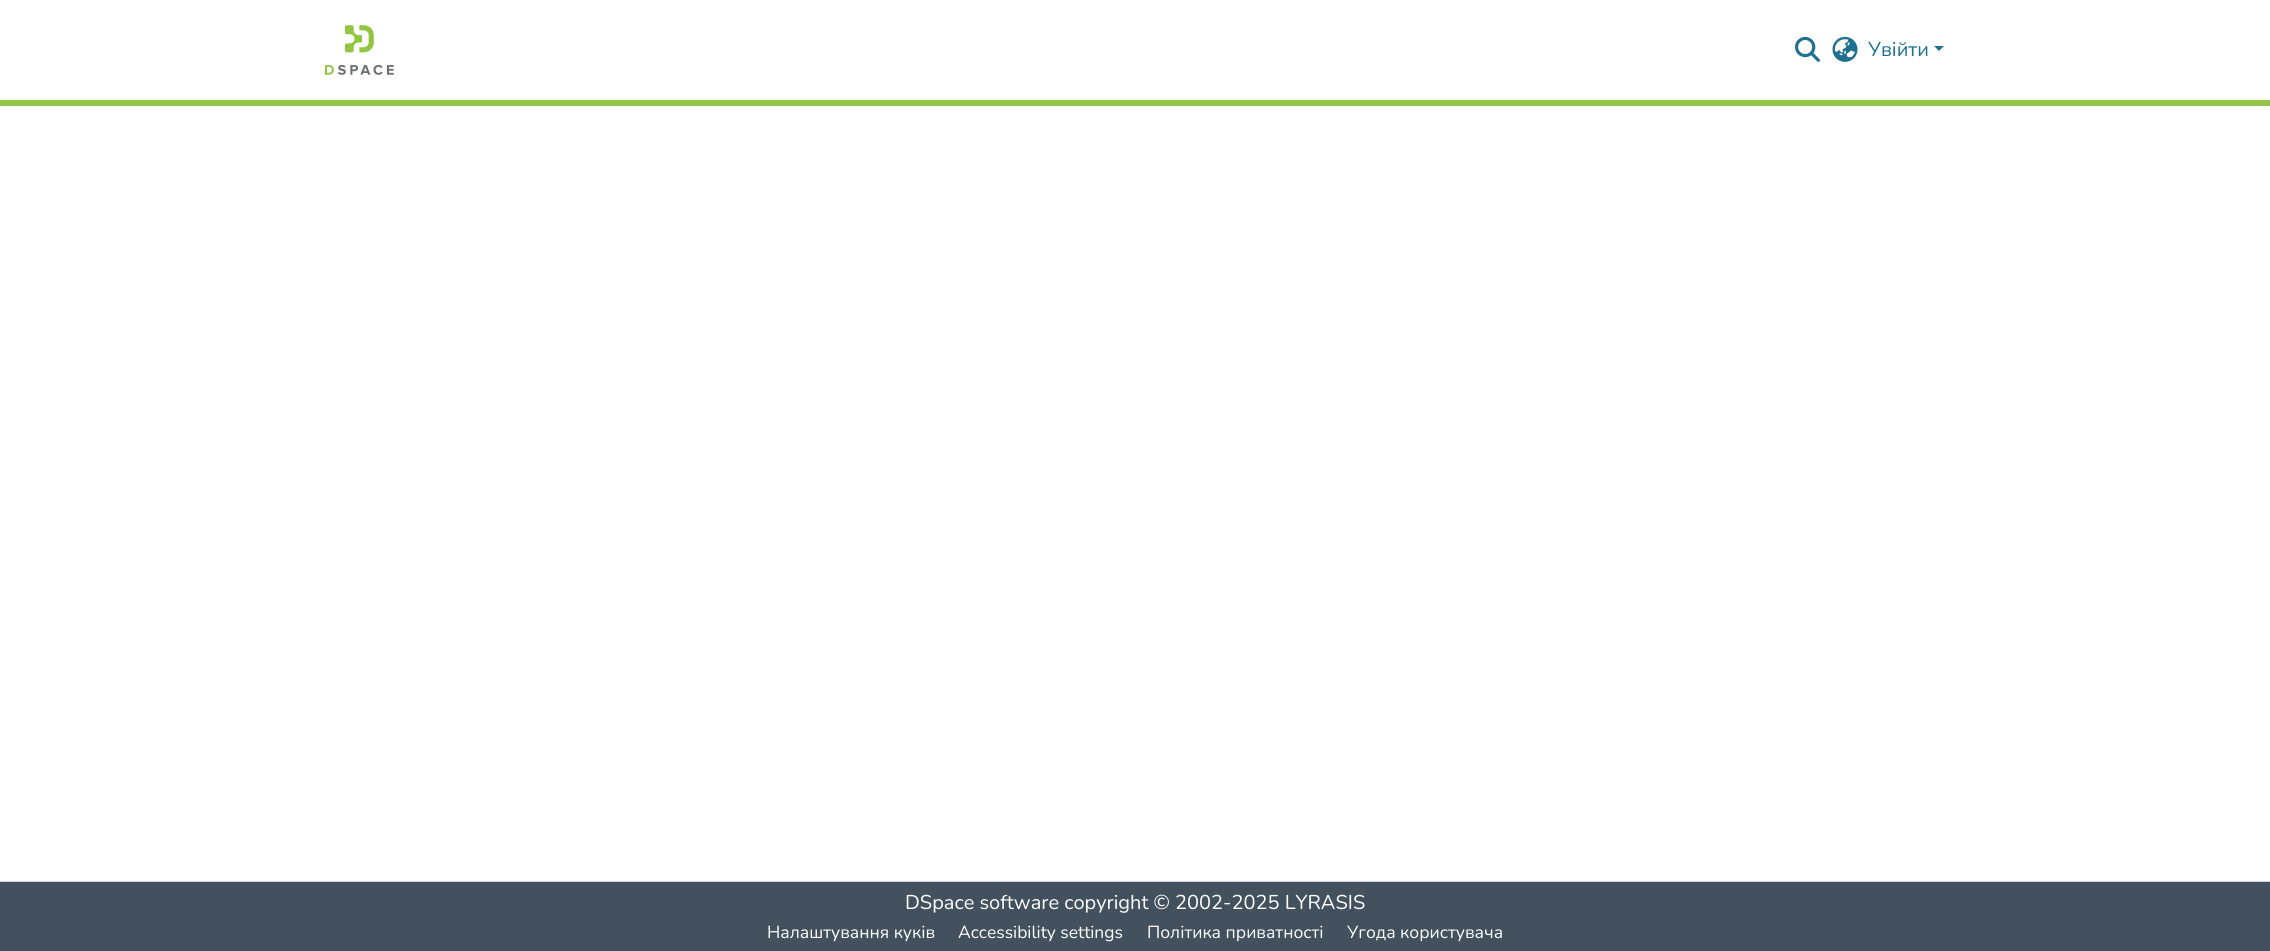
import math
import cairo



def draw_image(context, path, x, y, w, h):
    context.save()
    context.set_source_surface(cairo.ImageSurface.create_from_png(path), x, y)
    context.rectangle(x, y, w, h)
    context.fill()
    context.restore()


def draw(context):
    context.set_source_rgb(1, 1, 1)
    context.paint()
    context.set_source_rgb(146 / 255, 198 / 255, 66 / 255)
    context.rectangle(0, 100, 2270, 6)
    context.fill()
    draw_image(context, "images/1.png", 325, 25, 69, 50)
    draw_image(context, "images/2.png", 1795, 36, 25, 26)
    draw_image(context, "images/3.png", 1832, 36, 26, 26)
    context.set_source_rgb(30 / 255, 111 / 255, 144 / 255)
    context.new_path()
    context.move_to(1934, 46)
    context.line_to(1944, 46)
    context.line_to(1939, 51)
    context.close_path()
    context.fill()
    context.set_source_rgb(67 / 255, 81 / 255, 95 / 255)
    context.rectangle(0, 882, 2270, 69)
    context.fill()
    context.set_source_rgb(206 / 255, 212 / 255, 218 / 255)
    context.rectangle(0, 881, 2270, 1)
    context.fill()
    context.set_source_rgb(73 / 255, 80 / 255, 87 / 255)
    context.rectangle(946, 918, 1, 28)
    context.fill()
    context.rectangle(1135, 918, 1, 28)
    context.fill()
    context.rectangle(1335, 918, 1, 28)
    context.fill()
    context.select_font_face("Nunito")
    context.set_font_size(20)
    context.set_source_rgb(30 / 255, 111 / 255, 144 / 255)
    context.move_to(1868, 56)
    context.show_text("Увійти")
    context.set_source_rgb(1, 1, 1)
    context.move_to(905, 909)
    context.show_text("DSpace software copyright © 2002-2025 LYRASIS")
    context.set_font_size(17.5)
    context.move_to(767, 938)
    context.show_text("Налаштування куків")
    context.move_to(958, 938)
    context.show_text("Accessibility settings")
    context.move_to(1147, 938)
    context.show_text("Політика приватності")
    context.move_to(1347, 938)
    context.show_text("Угода користувача")


surface = cairo.ImageSurface(cairo.Format.RGB24, 2270, 951)
context = cairo.Context(surface)
options = cairo.FontOptions()
options.set_hint_metrics(cairo.HintMetrics.OFF)
options.set_hint_style(cairo.HintStyle.NONE)
context.set_font_options(options)
context.set_miter_limit(4)
draw(context)
surface.write_to_png("out.png")
